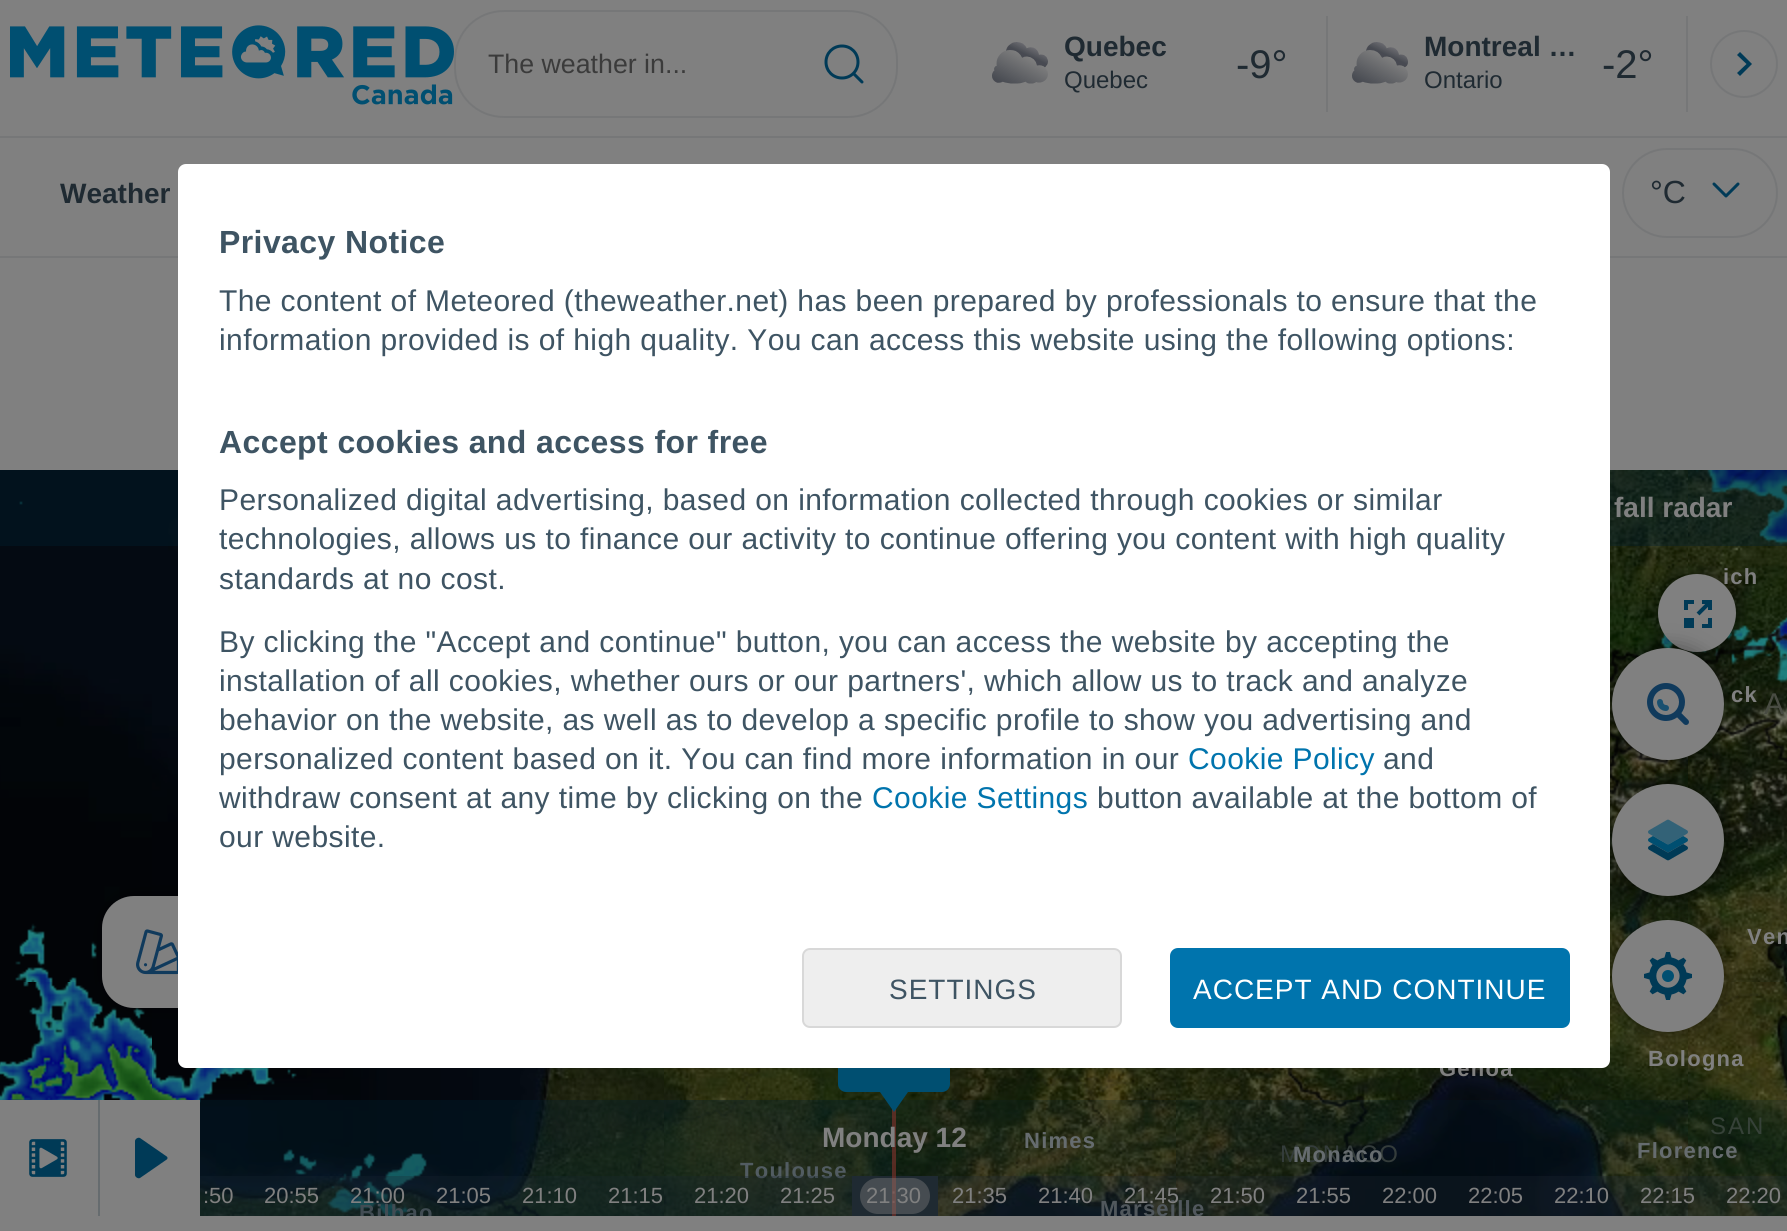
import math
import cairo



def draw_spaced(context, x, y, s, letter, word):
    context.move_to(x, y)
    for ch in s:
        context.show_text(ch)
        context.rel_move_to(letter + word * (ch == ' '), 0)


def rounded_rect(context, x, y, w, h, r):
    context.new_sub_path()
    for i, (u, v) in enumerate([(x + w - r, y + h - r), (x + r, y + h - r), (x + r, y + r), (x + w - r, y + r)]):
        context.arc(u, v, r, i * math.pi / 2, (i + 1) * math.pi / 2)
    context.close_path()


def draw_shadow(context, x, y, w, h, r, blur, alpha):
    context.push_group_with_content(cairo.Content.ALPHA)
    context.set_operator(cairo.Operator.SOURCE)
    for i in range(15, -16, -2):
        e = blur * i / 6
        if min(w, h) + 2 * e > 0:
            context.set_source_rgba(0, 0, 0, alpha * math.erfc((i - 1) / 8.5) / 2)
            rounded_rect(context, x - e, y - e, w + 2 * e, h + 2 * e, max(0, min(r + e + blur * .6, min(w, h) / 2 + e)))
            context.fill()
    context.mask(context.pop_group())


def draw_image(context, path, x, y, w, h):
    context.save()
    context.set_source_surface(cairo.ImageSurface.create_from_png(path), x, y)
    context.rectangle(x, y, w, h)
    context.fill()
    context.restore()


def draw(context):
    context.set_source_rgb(128 / 255, 128 / 255, 128 / 255)
    context.paint()
    context.set_source_rgb(118 / 255, 119 / 255, 120 / 255)
    context.rectangle(0, 136, 1787, 2)
    context.fill()
    draw_image(context, "images/1.png", 10, 25, 444, 80)
    context.set_fill_rule(cairo.FillRule.EVEN_ODD)
    context.new_path()
    context.move_to(504, 10)
    context.line_to(792, 10)
    context.line_to(792, 118)
    context.line_to(504, 118)
    context.curve_to(476, 118, 454, 96, 454, 68)
    context.line_to(454, 60)
    context.curve_to(454, 32, 476, 10, 504, 10)
    context.close_path()
    context.move_to(504, 12)
    context.line_to(792, 12)
    context.line_to(792, 116)
    context.line_to(504, 116)
    context.curve_to(477, 116, 456, 95, 456, 68)
    context.line_to(456, 60)
    context.curve_to(456, 33, 477, 12, 504, 12)
    context.close_path()
    context.fill()
    context.new_path()
    context.move_to(792, 10)
    context.line_to(848, 10)
    context.curve_to(876, 10, 898, 32, 898, 60)
    context.line_to(898, 68)
    context.curve_to(898, 96, 876, 118, 848, 118)
    context.line_to(792, 118)
    context.close_path()
    context.move_to(792, 12)
    context.line_to(848, 12)
    context.curve_to(875, 12, 896, 33, 896, 60)
    context.line_to(896, 68)
    context.curve_to(896, 95, 875, 116, 848, 116)
    context.line_to(792, 116)
    context.close_path()
    context.fill()
    context.new_path()
    context.move_to(862, 82)
    context.line_to(853.5, 73.5)
    context.move_to(858, 62)
    context.curve_to(858, 71, 851, 78, 842, 78)
    context.curve_to(833, 78, 826, 71, 826, 62)
    context.curve_to(826, 53, 833, 46, 842, 46)
    context.curve_to(851, 46, 858, 53, 858, 62)
    context.close_path()
    context.set_source_rgb(0, 58 / 255, 87 / 255)
    context.set_line_width(3)
    context.set_line_cap(cairo.LineCap.ROUND)
    context.set_line_join(cairo.LineJoin.ROUND)
    context.stroke()
    draw_image(context, "images/2.png", 992, 42, 56, 42)
    context.set_source_rgb(118 / 255, 119 / 255, 120 / 255)
    context.rectangle(1326, 16, 2, 96)
    context.fill()
    draw_image(context, "images/3.png", 1352, 42, 56, 42)
    context.rectangle(1686, 16, 2, 96)
    context.fill()
    context.arc(1744, 64, 33, 0, 2 * math.pi)
    context.set_line_width(2)
    context.set_line_cap(cairo.LineCap.BUTT)
    context.set_line_join(cairo.LineJoin.MITER)
    context.stroke()
    context.set_source_rgb(0, 58 / 255, 87 / 255)
    context.set_fill_rule(cairo.FillRule.WINDING)
    context.new_path()
    context.move_to(1740, 52)
    context.line_to(1737, 55)
    context.line_to(1746.5, 64)
    context.line_to(1737, 73)
    context.line_to(1740, 76)
    context.line_to(1752, 64)
    context.close_path()
    context.fill()
    context.set_source_rgb(118 / 255, 119 / 255, 120 / 255)
    context.rectangle(0, 256, 1787, 2)
    context.fill()
    rounded_rect(context, 1623, 149, 154, 88, 44)
    context.stroke()
    context.new_path()
    context.move_to(1714, 184)
    context.line_to(1726, 196)
    context.line_to(1738, 184)
    context.set_source_rgb(0, 58 / 255, 87 / 255)
    context.set_line_width(3)
    context.set_line_cap(cairo.LineCap.ROUND)
    context.set_line_join(cairo.LineJoin.ROUND)
    context.stroke()
    draw_image(context, "images/7.png", 1610, 470, 78, 512)
    draw_image(context, "images/8.png", 1688, 470, 99, 512)
    draw_image(context, "images/15.png", 1660, 632, 15, 17)
    draw_image(context, "images/16.png", 1691, 470, 96, 213)
    draw_image(context, "images/19.png", 1610, 470, 78, 468)
    draw_image(context, "images/20.png", 1688, 470, 99, 512)
    context.set_source_rgb(0, 0, 0)
    draw_shadow(context, 1658, 574, 78, 78, 39, 10, 0.4)
    draw_image(context, "images/5.png", 0, 470, 152, 512)
    draw_image(context, "images/6.png", 152, 470, 26, 426)
    draw_image(context, "images/14.png", 15, 501, 82, 481)
    context.set_source_rgba(0, 30 / 255, 45 / 255, 0.4)
    context.rectangle(0, 470, 1787, 76)
    context.fill()
    context.set_source_rgb(128 / 255, 128 / 255, 128 / 255)
    context.arc(1697, 613, 39, 0, 2 * math.pi)
    context.fill()
    draw_image(context, "images/4.png", 1684, 600, 28, 28)
    draw_image(context, "images/9.png", 0, 982, 152, 118)
    draw_image(context, "images/10.png", 152, 1008, 512, 208)
    draw_image(context, "images/11.png", 664, 1068, 512, 148)
    draw_image(context, "images/12.png", 1176, 982, 512, 234)
    draw_image(context, "images/13.png", 1688, 982, 99, 234)
    draw_image(context, "images/17.png", 0, 982, 152, 118)
    draw_image(context, "images/18.png", 152, 1049, 275, 167)
    draw_image(context, "images/21.png", 200, 1068, 464, 148)
    draw_image(context, "images/22.png", 664, 1068, 512, 148)
    draw_image(context, "images/23.png", 1176, 993, 512, 223)
    draw_image(context, "images/24.png", 1688, 982, 99, 234)
    context.set_source_rgb(0, 0, 0)
    draw_shadow(context, 102, 896, 112, 112, 32, 10, 0.4)
    context.set_source_rgb(128 / 255, 128 / 255, 128 / 255)
    rounded_rect(context, 102, 896, 112, 112, 32)
    context.fill()
    draw_image(context, "images/25.png", 136, 929, 42, 46)
    context.set_source_rgb(0, 0, 0)
    draw_shadow(context, 1612, 648, 112, 112, 56, 10, 0.4)
    context.set_source_rgb(128 / 255, 128 / 255, 128 / 255)
    context.arc(1668, 704, 56, 0, 2 * math.pi)
    context.fill()
    draw_image(context, "images/26.png", 1647, 683, 42, 42)
    context.set_source_rgb(0, 0, 0)
    draw_shadow(context, 1612, 784, 112, 112, 56, 10, 0.4)
    context.set_source_rgb(128 / 255, 128 / 255, 128 / 255)
    context.arc(1668, 840, 56, 0, 2 * math.pi)
    context.fill()
    draw_image(context, "images/27.png", 1648, 819, 40, 42)
    context.set_source_rgb(0, 0, 0)
    draw_shadow(context, 1612, 920, 112, 112, 56, 10, 0.4)
    context.set_source_rgb(128 / 255, 128 / 255, 128 / 255)
    context.arc(1668, 976, 56, 0, 2 * math.pi)
    context.fill()
    draw_image(context, "images/28.png", 1644, 952, 48, 48)
    context.set_source_rgb(102 / 255, 108 / 255, 111 / 255)
    context.rectangle(98, 1100, 2, 116)
    context.fill()
    draw_image(context, "images/29.png", 29, 1139, 38, 38)
    context.set_source_rgb(128 / 255, 128 / 255, 128 / 255)
    context.rectangle(152, 1100, 48, 116)
    context.fill()
    context.set_source_rgb(0, 58 / 255, 87 / 255)
    context.new_path()
    context.move_to(135, 1141)
    context.curve_to(135, 1139, 138, 1137, 140, 1138)
    context.line_to(166, 1156)
    context.curve_to(168, 1157, 168, 1159, 166, 1160)
    context.line_to(140, 1178)
    context.curve_to(138, 1179, 135, 1177, 135, 1175)
    context.close_path()
    context.fill()
    context.set_source_rgb(0, 79 / 255, 113 / 255)
    rounded_rect(context, 838, 1050, 112, 42, 8)
    context.fill()
    context.select_font_face("Liberation Sans")
    context.set_font_size(26.75)
    context.set_source_rgb(59 / 255, 59 / 255, 59 / 255)
    context.move_to(488, 73)
    context.show_text("The weather in...")
    context.select_font_face("Liberation Sans", cairo.FontSlant.NORMAL, cairo.FontWeight.BOLD)
    context.set_font_size(28)
    context.set_source_rgb(31 / 255, 42 / 255, 50 / 255)
    context.move_to(1064, 56)
    context.show_text("Quebec")
    context.select_font_face("Liberation Sans")
    context.set_font_size(24)
    context.move_to(1064, 88)
    context.show_text("Quebec")
    context.set_font_size(40)
    context.move_to(1236, 78)
    context.show_text("-9°")
    context.select_font_face("Liberation Sans", cairo.FontSlant.NORMAL, cairo.FontWeight.BOLD)
    context.set_font_size(28)
    context.move_to(1424, 56)
    context.show_text("Montreal …")
    context.select_font_face("Liberation Sans")
    context.set_font_size(24)
    context.move_to(1424, 88)
    context.show_text("Ontario")
    context.set_font_size(40)
    context.move_to(1602, 78)
    context.show_text("-2°")
    context.select_font_face("Liberation Sans", cairo.FontSlant.NORMAL, cairo.FontWeight.BOLD)
    context.set_font_size(28)
    context.move_to(60, 203)
    context.show_text("Weather")
    context.select_font_face("Liberation Sans")
    context.set_font_size(32)
    context.move_to(1650, 203)
    context.show_text("°C")
    context.select_font_face("Liberation Sans", cairo.FontSlant.NORMAL, cairo.FontWeight.BOLD)
    context.set_font_size(28)
    context.set_source_rgb(128 / 255, 128 / 255, 128 / 255)
    context.move_to(1614, 517)
    context.show_text("fall radar")
    context.set_font_size(22)
    draw_spaced(context, 1723, 584, "ich", 1.25, 0)
    draw_spaced(context, 1731, 702, "ck", 1.25, 0)
    context.select_font_face("Liberation Sans")
    context.set_font_size(30)
    context.set_source_rgb(73 / 255, 76 / 255, 67 / 255)
    draw_spaced(context, 1764, 714, "A", 10, 0)
    context.select_font_face("Liberation Sans", cairo.FontSlant.NORMAL, cairo.FontWeight.BOLD)
    context.set_font_size(22)
    context.set_source_rgb(128 / 255, 128 / 255, 128 / 255)
    draw_spaced(context, 1747, 944, "Ven", 1.25, 0)
    draw_spaced(context, 1439, 1076, "Genoa", 1.25, 0)
    context.set_source_rgb(1, 1, 1)
    rounded_rect(context, 178, 164, 1432, 904, 8)
    context.fill()
    context.set_source_rgb(238 / 255, 238 / 255, 238 / 255)
    rounded_rect(context, 803, 949, 318, 78, 7)
    context.fill_preserve()
    context.set_source_rgb(216 / 255, 216 / 255, 216 / 255)
    context.set_line_width(2)
    context.set_line_cap(cairo.LineCap.BUTT)
    context.set_line_join(cairo.LineJoin.MITER)
    context.stroke()
    context.select_font_face("Liberation Sans")
    context.set_font_size(28)
    context.set_source_rgb(62 / 255, 84 / 255, 99 / 255)
    draw_spaced(context, 889, 999, "SETTINGS", 1, 0)
    context.set_source_rgb(0, 116 / 255, 173 / 255)
    rounded_rect(context, 1170, 948, 400, 80, 8)
    context.fill()
    context.set_source_rgb(1, 1, 1)
    draw_spaced(context, 1193, 999, "ACCEPT AND CONTINUE", 1, 0)
    context.set_font_size(30)
    context.set_source_rgb(62 / 255, 84 / 255, 99 / 255)
    draw_spaced(context, 219, 847, "our website.", 0.4, 0)
    draw_spaced(context, 1097, 808, "button available at the bottom of", 0.4, 0)
    context.set_source_rgb(0, 116 / 255, 173 / 255)
    draw_spaced(context, 872, 808, "Cookie Settings", 0.4, 0)
    context.set_source_rgb(62 / 255, 84 / 255, 99 / 255)
    draw_spaced(context, 219, 808, "withdraw consent at any time by clicking on the", 0.4, 0)
    draw_spaced(context, 1383, 769, "and", 0.4, 0)
    context.set_source_rgb(0, 116 / 255, 173 / 255)
    draw_spaced(context, 1188, 769, "Cookie Policy", 0.4, 0)
    context.set_source_rgb(62 / 255, 84 / 255, 99 / 255)
    draw_spaced(context, 219, 769, "personalized content based on it. You can find more information in our", 0.4, 0)
    draw_spaced(context, 219, 730, "behavior on the website, as well as to develop a specific profile to show you advertising and", 0.4, 0)
    draw_spaced(context, 219, 691, "installation of all cookies, whether ours or our partners', which allow us to track and analyze", 0.4, 0)
    draw_spaced(context, 219, 652, "By clicking the \"Accept and continue\" button, you can access the website by accepting the", 0.4, 0)
    draw_spaced(context, 219, 589, "standards at no cost.", 0.4, 0)
    draw_spaced(context, 219, 549, "technologies, allows us to finance our activity to continue offering you content with high quality", 0.4, 0)
    draw_spaced(context, 219, 510, "Personalized digital advertising, based on information collected through cookies or similar", 0.4, 0)
    context.select_font_face("Liberation Sans", cairo.FontSlant.NORMAL, cairo.FontWeight.BOLD)
    context.set_font_size(32)
    draw_spaced(context, 219, 453, "Accept cookies and access for free", 0.4, 0)
    context.select_font_face("Liberation Sans")
    context.set_font_size(30)
    draw_spaced(context, 219, 350, "information provided is of high quality. You can access this website using the following options:", 0.4, 0)
    draw_spaced(context, 219, 311, "The content of Meteored (theweather.net) has been prepared by professionals to ensure that the", 0.4, 0)
    context.select_font_face("Liberation Sans", cairo.FontSlant.NORMAL, cairo.FontWeight.BOLD)
    context.set_font_size(32)
    draw_spaced(context, 219, 253, "Privacy Notice", 0.4, 0)
    context.select_font_face("Liberation Sans")
    context.set_font_size(24)
    context.set_source_rgb(65 / 255, 68 / 255, 62 / 255)
    draw_spaced(context, 1280, 1162, "MONACO", 2, 0)
    context.select_font_face("Liberation Sans", cairo.FontSlant.NORMAL, cairo.FontWeight.BOLD)
    context.set_font_size(22)
    context.set_source_rgb(128 / 255, 128 / 255, 128 / 255)
    draw_spaced(context, 1293, 1162, "Monaco", 1.25, 0)
    draw_spaced(context, 1648, 1066, "Bologna", 1.25, 0)
    context.select_font_face("Liberation Sans")
    context.set_font_size(24)
    context.set_source_rgb(67 / 255, 74 / 255, 59 / 255)
    draw_spaced(context, 1710, 1134, "SAN", 2, 0)
    context.select_font_face("Liberation Sans", cairo.FontSlant.NORMAL, cairo.FontWeight.BOLD)
    context.set_font_size(22)
    context.set_source_rgb(128 / 255, 128 / 255, 128 / 255)
    draw_spaced(context, 1637, 1158, "Florence", 1.25, 0)
    context.save()
    context.rectangle(0, 470, 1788, 746)
    context.clip()
    draw_spaced(context, 359, 1220, "Bilbao", 1.25, 0)
    context.restore()
    draw_spaced(context, 1024, 1148, "Nimes", 1.25, 0)
    draw_spaced(context, 740, 1178, "Toulouse", 1.25, 0)
    context.save()
    context.rectangle(0, 470, 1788, 746)
    context.clip()
    draw_spaced(context, 1100, 1216, "Marseille", 1.25, 0)
    context.restore()
    context.set_source_rgba(0, 30 / 255, 45 / 255, 0.2)
    context.rectangle(200, 1100, 1587, 116)
    context.fill()
    context.set_source_rgba(31 / 255, 42 / 255, 50 / 255, 0.3)
    context.rectangle(200, 1176, 1587, 40)
    context.fill()
    context.set_source_rgba(0, 30 / 255, 45 / 255, 0.2)
    context.rectangle(200, 1100, 694, 116)
    context.fill()
    context.select_font_face("Liberation Sans")
    context.set_source_rgb(128 / 255, 128 / 255, 128 / 255)
    context.move_to(203, 1203)
    context.show_text(":50")
    context.move_to(264, 1203)
    context.show_text("20:55")
    context.move_to(350, 1203)
    context.show_text("21:00")
    context.move_to(436, 1203)
    context.show_text("21:05")
    context.move_to(522, 1203)
    context.show_text("21:10")
    context.move_to(608, 1203)
    context.show_text("21:15")
    context.move_to(694, 1203)
    context.show_text("21:20")
    context.move_to(780, 1203)
    context.show_text("21:25")
    context.set_source_rgb(31 / 255, 42 / 255, 50 / 255)
    context.rectangle(852, 1176, 86, 40)
    context.fill()
    context.set_source_rgb(128 / 255, 128 / 255, 128 / 255)
    context.move_to(866, 1203)
    context.show_text("21:30")
    context.set_source_rgba(117 / 255, 49 / 255, 42 / 255, 0.7)
    context.rectangle(892, 1109, 4, 107)
    context.fill()
    context.set_source_rgba(128 / 255, 128 / 255, 128 / 255, 0.4)
    rounded_rect(context, 860, 1178, 70, 36, 18)
    context.fill()
    context.set_source_rgb(0, 79 / 255, 113 / 255)
    context.new_path()
    context.move_to(880, 1092)
    context.line_to(908, 1092)
    context.line_to(894, 1112)
    context.close_path()
    context.fill()
    context.select_font_face("Liberation Sans", cairo.FontSlant.NORMAL, cairo.FontWeight.BOLD)
    context.set_font_size(28)
    context.set_source_rgb(128 / 255, 128 / 255, 128 / 255)
    context.move_to(822, 1147)
    context.show_text("Monday 12")
    context.select_font_face("Liberation Sans")
    context.set_font_size(22)
    context.move_to(952, 1203)
    context.show_text("21:35")
    context.move_to(1038, 1203)
    context.show_text("21:40")
    context.move_to(1124, 1203)
    context.show_text("21:45")
    context.move_to(1210, 1203)
    context.show_text("21:50")
    context.move_to(1296, 1203)
    context.show_text("21:55")
    context.move_to(1382, 1203)
    context.show_text("22:00")
    context.move_to(1468, 1203)
    context.show_text("22:05")
    context.move_to(1554, 1203)
    context.show_text("22:10")
    context.move_to(1640, 1203)
    context.show_text("22:15")
    context.move_to(1726, 1203)
    context.show_text("22:20")


surface = cairo.ImageSurface(cairo.Format.RGB24, 1787, 1231)
context = cairo.Context(surface)
options = cairo.FontOptions()
options.set_hint_metrics(cairo.HintMetrics.OFF)
options.set_hint_style(cairo.HintStyle.NONE)
context.set_font_options(options)
context.set_miter_limit(4)
draw(context)
surface.write_to_png("out.png")
